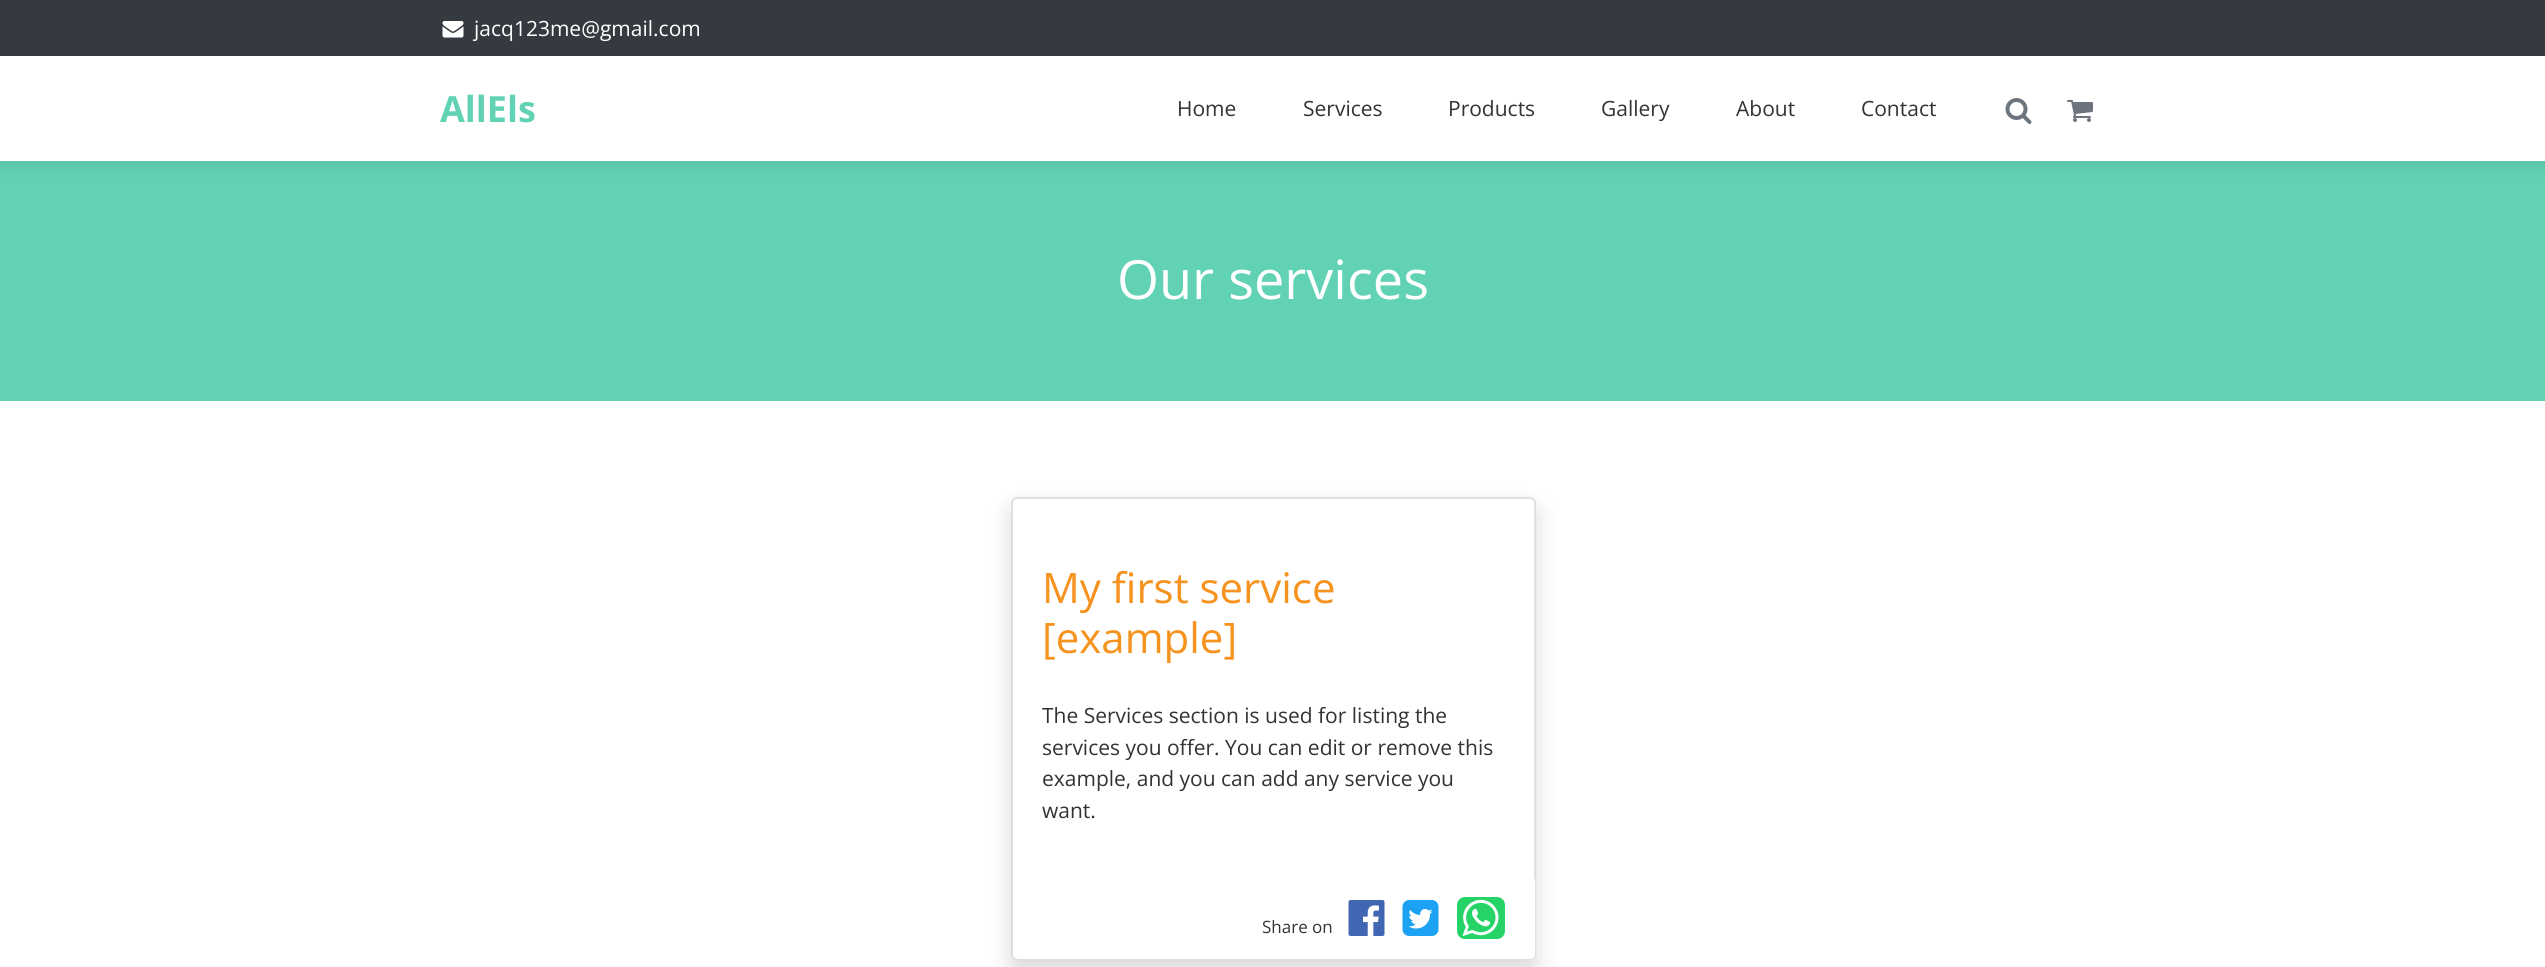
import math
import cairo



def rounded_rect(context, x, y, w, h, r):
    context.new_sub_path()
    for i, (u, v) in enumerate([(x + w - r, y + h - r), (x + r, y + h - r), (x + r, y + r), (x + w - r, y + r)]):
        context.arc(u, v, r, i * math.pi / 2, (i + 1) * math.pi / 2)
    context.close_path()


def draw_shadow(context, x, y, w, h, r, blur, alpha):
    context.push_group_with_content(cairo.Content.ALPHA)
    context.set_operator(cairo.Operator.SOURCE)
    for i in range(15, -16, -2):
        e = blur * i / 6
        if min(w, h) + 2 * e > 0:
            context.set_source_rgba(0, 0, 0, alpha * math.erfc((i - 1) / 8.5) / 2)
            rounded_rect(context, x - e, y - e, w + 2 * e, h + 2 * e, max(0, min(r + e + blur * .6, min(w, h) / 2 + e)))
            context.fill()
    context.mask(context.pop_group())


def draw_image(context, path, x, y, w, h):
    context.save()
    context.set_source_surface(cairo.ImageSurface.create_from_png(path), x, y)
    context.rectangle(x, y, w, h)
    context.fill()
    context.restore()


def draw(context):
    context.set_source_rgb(1, 1, 1)
    context.paint()
    context.set_source_rgb(52 / 255, 58 / 255, 64 / 255)
    context.rectangle(0, 0, 2545, 56)
    context.fill()
    draw_image(context, "images/1.png", 442, 21, 22, 17)
    context.set_source_rgb(97 / 255, 210 / 255, 180 / 255)
    context.rectangle(0, 161, 2545, 240)
    context.fill()
    context.set_source_rgb(0, 0, 0)
    draw_shadow(context, -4, 56, 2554, 114, 0, 4.5, 0.06)
    context.set_source_rgb(1, 1, 1)
    context.rectangle(0, 56, 2545, 105)
    context.fill()
    draw_image(context, "images/2.png", 2005, 98, 27, 26)
    draw_image(context, "images/3.png", 2067, 100, 26, 22)
    context.set_source_rgb(0, 0, 0)
    draw_shadow(context, 1011, 509, 525, 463, 6, 12, 0.15)
    context.set_source_rgb(1, 1, 1)
    rounded_rect(context, 1012, 498, 523, 461, 5)
    context.fill_preserve()
    context.set_source_rgb(223 / 255, 223 / 255, 223 / 255)
    context.stroke()
    context.set_source_rgb(1, 1, 1)
    context.new_path()
    context.move_to(1013, 879)
    context.line_to(1535, 879)
    context.line_to(1535, 954)
    context.curve_to(1535, 957, 1533, 959, 1530, 959)
    context.line_to(1018, 959)
    context.curve_to(1015, 959, 1013, 957, 1013, 954)
    context.close_path()
    context.fill()
    draw_image(context, "images/4.png", 1348, 900, 37, 36)
    draw_image(context, "images/5.png", 1402, 900, 37, 36)
    context.set_source_rgb(37 / 255, 211 / 255, 102 / 255)
    rounded_rect(context, 1457, 897, 48, 42, 8)
    context.fill()
    draw_image(context, "images/6.png", 1462, 899, 37, 38)
    context.select_font_face("Open Sans")
    context.set_font_size(21)
    context.set_source_rgb(1, 1, 1)
    context.move_to(474, 36)
    context.show_text("jacq123me@gmail.com")
    context.select_font_face("Open Sans", cairo.FontSlant.NORMAL, cairo.FontWeight.BOLD)
    context.set_font_size(36)
    context.set_source_rgb(97 / 255, 210 / 255, 180 / 255)
    context.move_to(440, 122)
    context.show_text("AllEls")
    context.select_font_face("Open Sans")
    context.set_font_size(21)
    context.set_source_rgb(51 / 255, 51 / 255, 51 / 255)
    context.move_to(1177, 116)
    context.show_text("Home")
    context.move_to(1303, 116)
    context.show_text("Services")
    context.move_to(1448, 116)
    context.show_text("Products")
    context.move_to(1601, 116)
    context.show_text("Gallery")
    context.move_to(1736, 116)
    context.show_text("About")
    context.move_to(1861, 116)
    context.show_text("Contact")
    context.set_font_size(54)
    context.set_source_rgb(1, 1, 1)
    context.move_to(1117, 299)
    context.show_text("Our services")
    context.set_font_size(42)
    context.set_source_rgb(246 / 255, 146 / 255, 30 / 255)
    context.move_to(1042, 603)
    context.show_text("My first service")
    context.move_to(1042, 653)
    context.show_text("[example]")
    context.set_font_size(21)
    context.set_source_rgb(51 / 255, 51 / 255, 51 / 255)
    context.move_to(1042, 723)
    context.show_text("The Services section is used for listing the")
    context.move_to(1042, 755)
    context.show_text("services you offer. You can edit or remove this")
    context.move_to(1042, 786)
    context.show_text("example, and you can add any service you")
    context.move_to(1042, 818)
    context.show_text("want.")
    context.set_font_size(17)
    context.move_to(1262, 933)
    context.show_text("Share on")


surface = cairo.ImageSurface(cairo.Format.RGB24, 2545, 967)
context = cairo.Context(surface)
options = cairo.FontOptions()
options.set_hint_metrics(cairo.HintMetrics.OFF)
options.set_hint_style(cairo.HintStyle.NONE)
context.set_font_options(options)
context.set_miter_limit(4)
draw(context)
surface.write_to_png("out.png")
